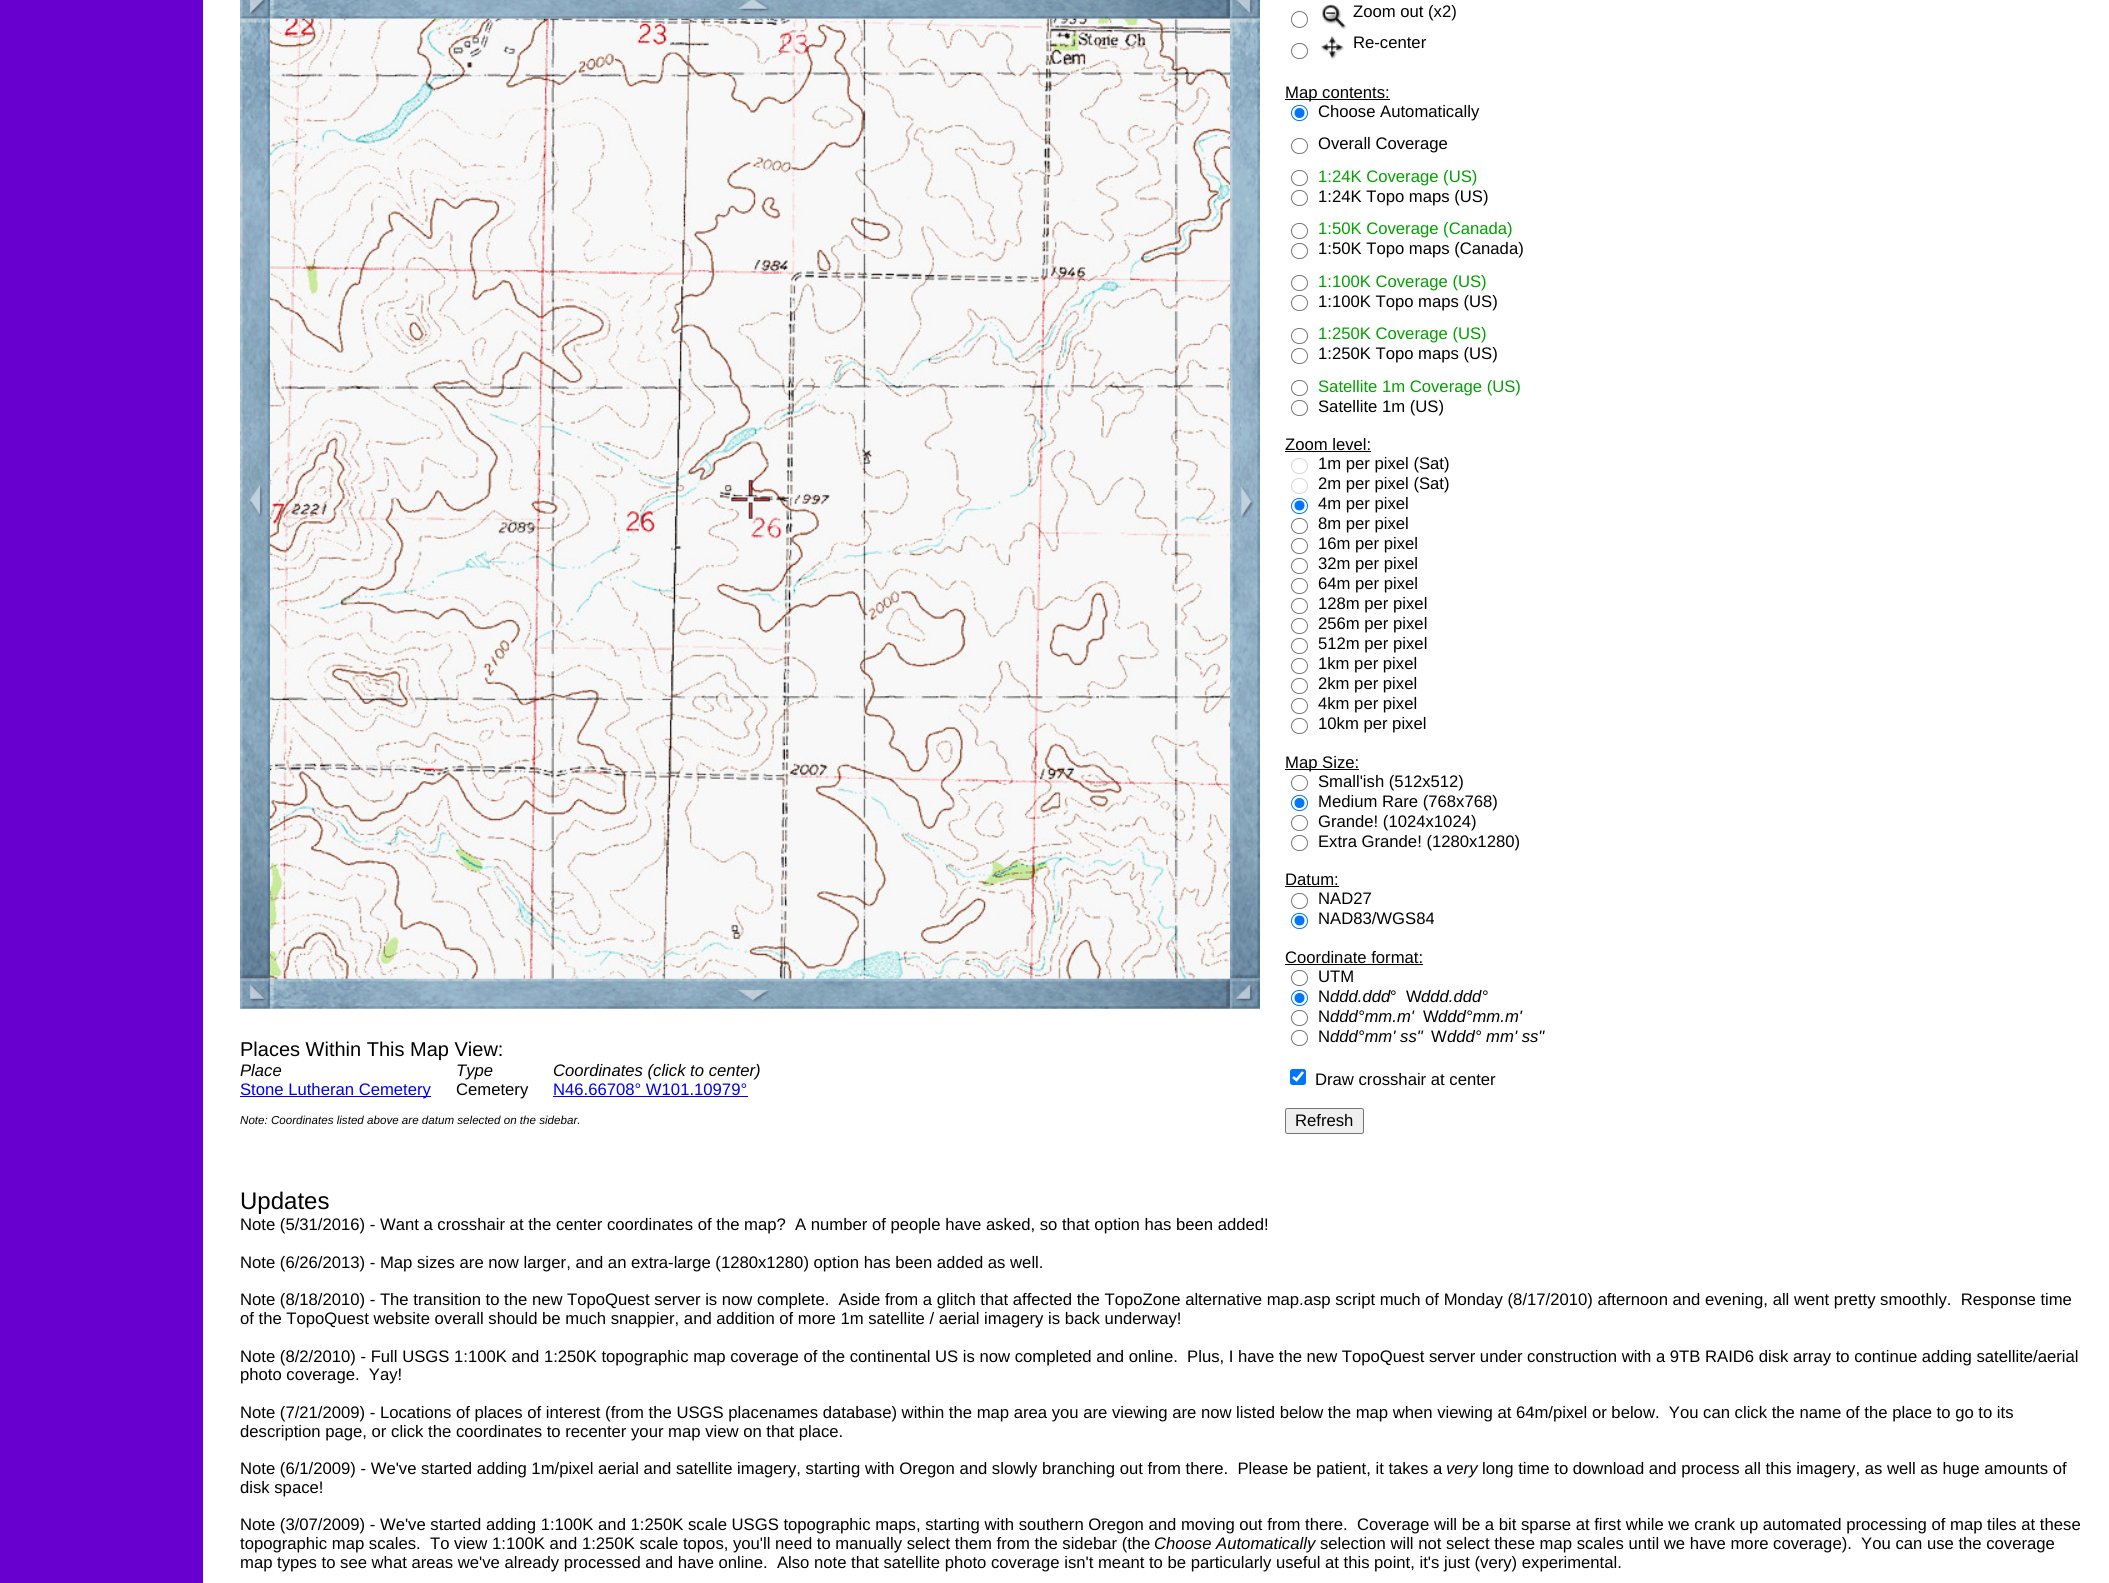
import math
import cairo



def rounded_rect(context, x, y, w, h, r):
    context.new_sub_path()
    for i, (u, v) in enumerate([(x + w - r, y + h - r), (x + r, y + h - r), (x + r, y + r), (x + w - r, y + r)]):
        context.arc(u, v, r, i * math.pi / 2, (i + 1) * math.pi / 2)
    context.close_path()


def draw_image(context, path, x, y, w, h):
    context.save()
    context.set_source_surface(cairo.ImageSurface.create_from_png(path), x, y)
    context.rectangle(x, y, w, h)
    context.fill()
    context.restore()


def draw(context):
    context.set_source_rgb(1, 1, 1)
    context.paint()
    context.set_source_rgb(104 / 255, 1 / 255, 207 / 255)
    context.rectangle(0, 0, 203, 1583)
    context.fill()
    draw_image(context, "images/1.png", 240, 0, 30, 19)
    draw_image(context, "images/2.png", 270, 0, 960, 19)
    draw_image(context, "images/3.png", 1230, 0, 30, 19)
    draw_image(context, "images/4.png", 240, 18, 30, 961)
    draw_image(context, "images/5.png", 270, 18, 960, 961)
    draw_image(context, "images/6.png", 1230, 18, 30, 961)
    draw_image(context, "images/7.png", 240, 978, 30, 31)
    draw_image(context, "images/8.png", 270, 978, 960, 31)
    draw_image(context, "images/9.png", 1230, 978, 30, 31)
    context.set_source_rgb(0, 0, 238 / 255)
    context.rectangle(240, 1096, 191, 1)
    context.fill()
    context.rectangle(553, 1096, 195, 1)
    context.fill()
    context.arc(1299.5, 19.5, 8, 0, 2 * math.pi)
    context.set_source_rgb(118 / 255, 118 / 255, 118 / 255)
    context.set_line_width(1)
    context.stroke()
    draw_image(context, "images/10.png", 1322, 4, 25, 26)
    rounded_rect(context, 1291.5, 43.5, 16, 15, 7.5)
    context.stroke()
    draw_image(context, "images/11.png", 1321, 36, 24, 24)
    context.set_source_rgb(0, 0, 0)
    context.rectangle(1285, 99, 105, 1)
    context.fill()
    rounded_rect(context, 1291.5, 105.5, 16, 15, 7.5)
    context.set_source_rgb(0, 117 / 255, 1)
    context.stroke()
    context.arc(1299.5, 113, 5, 0, 2 * math.pi)
    context.fill()
    rounded_rect(context, 1291.5, 138.5, 16, 15, 7.5)
    context.set_source_rgb(118 / 255, 118 / 255, 118 / 255)
    context.stroke()
    rounded_rect(context, 1291.5, 170.5, 16, 15, 7.5)
    context.stroke()
    rounded_rect(context, 1291.5, 190.5, 16, 15, 7.5)
    context.stroke()
    rounded_rect(context, 1291.5, 223.5, 16, 15, 7.5)
    context.stroke()
    rounded_rect(context, 1291.5, 243.5, 16, 15, 7.5)
    context.stroke()
    rounded_rect(context, 1291.5, 275.5, 16, 15, 7.5)
    context.stroke()
    rounded_rect(context, 1291.5, 295.5, 16, 15, 7.5)
    context.stroke()
    rounded_rect(context, 1291.5, 328.5, 16, 15, 7.5)
    context.stroke()
    rounded_rect(context, 1291.5, 348.5, 16, 15, 7.5)
    context.stroke()
    rounded_rect(context, 1291.5, 380.5, 16, 15, 7.5)
    context.stroke()
    rounded_rect(context, 1291.5, 400.5, 16, 15, 7.5)
    context.stroke()
    context.set_source_rgb(0, 0, 0)
    context.rectangle(1285, 451, 86, 1)
    context.fill()
    rounded_rect(context, 1291.5, 458.5, 16, 15, 7.5)
    context.set_source_rgb(214 / 255, 214 / 255, 214 / 255)
    context.stroke()
    rounded_rect(context, 1291.5, 478.5, 16, 15, 7.5)
    context.stroke()
    rounded_rect(context, 1291.5, 498.5, 16, 15, 7.5)
    context.set_source_rgb(0, 117 / 255, 1)
    context.stroke()
    context.arc(1299.5, 505.5, 5, 0, 2 * math.pi)
    context.fill()
    rounded_rect(context, 1291.5, 518.5, 16, 15, 7.5)
    context.set_source_rgb(118 / 255, 118 / 255, 118 / 255)
    context.stroke()
    rounded_rect(context, 1291.5, 538.5, 16, 15, 7.5)
    context.stroke()
    rounded_rect(context, 1291.5, 558.5, 16, 15, 7.5)
    context.stroke()
    rounded_rect(context, 1291.5, 578.5, 16, 15, 7.5)
    context.stroke()
    rounded_rect(context, 1291.5, 598.5, 16, 15, 7.5)
    context.stroke()
    rounded_rect(context, 1291.5, 618.5, 16, 15, 7.5)
    context.stroke()
    rounded_rect(context, 1291.5, 638.5, 16, 15, 7.5)
    context.stroke()
    rounded_rect(context, 1291.5, 658.5, 16, 15, 7.5)
    context.stroke()
    rounded_rect(context, 1291.5, 678.5, 16, 15, 7.5)
    context.stroke()
    rounded_rect(context, 1291.5, 698.5, 16, 15, 7.5)
    context.stroke()
    rounded_rect(context, 1291.5, 718.5, 16, 15, 7.5)
    context.stroke()
    context.set_source_rgb(0, 0, 0)
    context.rectangle(1285, 769, 74, 1)
    context.fill()
    rounded_rect(context, 1291.5, 775.5, 16, 15, 7.5)
    context.set_source_rgb(118 / 255, 118 / 255, 118 / 255)
    context.stroke()
    rounded_rect(context, 1291.5, 795.5, 16, 15, 7.5)
    context.set_source_rgb(0, 117 / 255, 1)
    context.stroke()
    context.arc(1299.5, 803, 5, 0, 2 * math.pi)
    context.fill()
    rounded_rect(context, 1291.5, 815.5, 16, 15, 7.5)
    context.set_source_rgb(118 / 255, 118 / 255, 118 / 255)
    context.stroke()
    rounded_rect(context, 1291.5, 835.5, 16, 15, 7.5)
    context.stroke()
    context.set_source_rgb(0, 0, 0)
    context.rectangle(1285, 886, 54, 1)
    context.fill()
    rounded_rect(context, 1291.5, 893.5, 16, 15, 7.5)
    context.set_source_rgb(118 / 255, 118 / 255, 118 / 255)
    context.stroke()
    rounded_rect(context, 1291.5, 913.5, 16, 15, 7.5)
    context.set_source_rgb(0, 117 / 255, 1)
    context.stroke()
    context.arc(1299.5, 920.5, 5, 0, 2 * math.pi)
    context.fill()
    context.set_source_rgb(0, 0, 0)
    context.rectangle(1285, 964, 138, 1)
    context.fill()
    rounded_rect(context, 1291.5, 970.5, 16, 15, 7.5)
    context.set_source_rgb(118 / 255, 118 / 255, 118 / 255)
    context.stroke()
    rounded_rect(context, 1291.5, 990.5, 16, 15, 7.5)
    context.set_source_rgb(0, 117 / 255, 1)
    context.stroke()
    context.arc(1299.5, 998, 5, 0, 2 * math.pi)
    context.fill()
    rounded_rect(context, 1291.5, 1010.5, 16, 15, 7.5)
    context.set_source_rgb(118 / 255, 118 / 255, 118 / 255)
    context.stroke()
    rounded_rect(context, 1291.5, 1030.5, 16, 15, 7.5)
    context.stroke()
    context.set_source_rgb(0, 117 / 255, 1)
    rounded_rect(context, 1290, 1069, 16, 16, 2.5)
    context.fill()
    context.new_path()
    context.move_to(1293, 1077)
    context.line_to(1296.5, 1080)
    context.line_to(1303, 1072)
    context.set_source_rgb(1, 1, 1)
    context.set_line_width(2.6)
    context.stroke()
    context.set_source_rgb(239 / 255, 239 / 255, 239 / 255)
    rounded_rect(context, 1285.5, 1108.5, 78, 25, 2)
    context.fill_preserve()
    context.set_source_rgb(118 / 255, 118 / 255, 118 / 255)
    context.set_line_width(1)
    context.stroke()
    context.select_font_face("Liberation Sans")
    context.set_font_size(20)
    context.set_source_rgb(0, 0, 0)
    context.move_to(240, 1056)
    context.show_text("Places Within This Map View:")
    context.select_font_face("Liberation Sans", cairo.FontSlant.ITALIC)
    context.set_font_size(16.67)
    context.move_to(240, 1076)
    context.show_text("Place")
    context.move_to(456, 1076)
    context.show_text("Type")
    context.move_to(553, 1076)
    context.show_text("Coordinates (click to center)")
    context.select_font_face("Liberation Sans")
    context.set_source_rgb(0, 0, 238 / 255)
    context.move_to(240, 1095)
    context.show_text("Stone Lutheran Cemetery")
    context.set_source_rgb(0, 0, 0)
    context.move_to(456, 1095)
    context.show_text("Cemetery")
    context.set_source_rgb(0, 0, 238 / 255)
    context.move_to(553, 1095)
    context.show_text("N46.66708° W101.10979°")
    context.select_font_face("Liberation Sans", cairo.FontSlant.ITALIC)
    context.set_font_size(11.6)
    context.set_source_rgb(0, 0, 0)
    context.move_to(240, 1124)
    context.show_text("Note: Coordinates listed above are datum selected on the sidebar.")
    context.select_font_face("Liberation Sans")
    context.set_font_size(16.67)
    context.move_to(1353, 17)
    context.show_text("Zoom out (x2)")
    context.move_to(1353, 48)
    context.show_text("Re-center")
    context.move_to(1285, 98)
    context.show_text("Map contents:")
    context.move_to(1318, 117)
    context.show_text("Choose Automatically")
    context.move_to(1318, 149)
    context.show_text("Overall Coverage")
    context.set_source_rgb(0, 160 / 255, 0)
    context.move_to(1318, 182)
    context.show_text("1:24K Coverage (US)")
    context.set_source_rgb(0, 0, 0)
    context.move_to(1318, 202)
    context.show_text("1:24K Topo maps (US)")
    context.set_source_rgb(0, 160 / 255, 0)
    context.move_to(1318, 234)
    context.show_text("1:50K Coverage (Canada)")
    context.set_source_rgb(0, 0, 0)
    context.move_to(1318, 254)
    context.show_text("1:50K Topo maps (Canada)")
    context.set_source_rgb(0, 160 / 255, 0)
    context.move_to(1318, 287)
    context.show_text("1:100K Coverage (US)")
    context.set_source_rgb(0, 0, 0)
    context.move_to(1318, 307)
    context.show_text("1:100K Topo maps (US)")
    context.set_source_rgb(0, 160 / 255, 0)
    context.move_to(1318, 339)
    context.show_text("1:250K Coverage (US)")
    context.set_source_rgb(0, 0, 0)
    context.move_to(1318, 359)
    context.show_text("1:250K Topo maps (US)")
    context.set_source_rgb(0, 160 / 255, 0)
    context.move_to(1318, 392)
    context.show_text("Satellite 1m Coverage (US)")
    context.set_source_rgb(0, 0, 0)
    context.move_to(1318, 412)
    context.show_text("Satellite 1m (US)")
    context.move_to(1285, 450)
    context.show_text("Zoom level:")
    context.move_to(1318, 469)
    context.show_text("1m per pixel (Sat)")
    context.move_to(1318, 489)
    context.show_text("2m per pixel (Sat)")
    context.move_to(1318, 509)
    context.show_text("4m per pixel")
    context.move_to(1318, 529)
    context.show_text("8m per pixel")
    context.move_to(1318, 549)
    context.show_text("16m per pixel")
    context.move_to(1318, 569)
    context.show_text("32m per pixel")
    context.move_to(1318, 589)
    context.show_text("64m per pixel")
    context.move_to(1318, 609)
    context.show_text("128m per pixel")
    context.move_to(1318, 629)
    context.show_text("256m per pixel")
    context.move_to(1318, 649)
    context.show_text("512m per pixel")
    context.move_to(1318, 669)
    context.show_text("1km per pixel")
    context.move_to(1318, 689)
    context.show_text("2km per pixel")
    context.move_to(1318, 709)
    context.show_text("4km per pixel")
    context.move_to(1318, 729)
    context.show_text("10km per pixel")
    context.move_to(1285, 768)
    context.show_text("Map Size:")
    context.move_to(1318, 787)
    context.show_text("Small'ish (512x512)")
    context.move_to(1318, 807)
    context.show_text("Medium Rare (768x768)")
    context.move_to(1318, 827)
    context.show_text("Grande! (1024x1024)")
    context.move_to(1318, 847)
    context.show_text("Extra Grande! (1280x1280)")
    context.move_to(1285, 885)
    context.show_text("Datum:")
    context.move_to(1318, 904)
    context.show_text("NAD27")
    context.move_to(1318, 924)
    context.show_text("NAD83/WGS84")
    context.move_to(1285, 963)
    context.show_text("Coordinate format:")
    context.move_to(1318, 982)
    context.show_text("UTM")
    context.move_to(1318, 1002)
    context.show_text("N")
    context.select_font_face("Liberation Sans", cairo.FontSlant.ITALIC)
    context.move_to(1330, 1002)
    context.show_text("ddd.ddd")
    context.select_font_face("Liberation Sans")
    context.move_to(1390, 1002)
    context.show_text("°  W")
    context.select_font_face("Liberation Sans", cairo.FontSlant.ITALIC)
    context.move_to(1421, 1002)
    context.show_text("ddd.ddd")
    context.select_font_face("Liberation Sans")
    context.move_to(1482, 1002)
    context.show_text("°")
    context.move_to(1318, 1022)
    context.show_text("N")
    context.select_font_face("Liberation Sans", cairo.FontSlant.ITALIC)
    context.move_to(1330, 1022)
    context.show_text("ddd°mm.m'")
    context.select_font_face("Liberation Sans")
    context.move_to(1423, 1022)
    context.show_text("W")
    context.select_font_face("Liberation Sans", cairo.FontSlant.ITALIC)
    context.move_to(1438, 1022)
    context.show_text("ddd°mm.m'")
    context.select_font_face("Liberation Sans")
    context.move_to(1318, 1042)
    context.show_text("N")
    context.select_font_face("Liberation Sans", cairo.FontSlant.ITALIC)
    context.move_to(1330, 1042)
    context.show_text("ddd°mm' ss\"")
    context.select_font_face("Liberation Sans")
    context.move_to(1431, 1042)
    context.show_text("W")
    context.select_font_face("Liberation Sans", cairo.FontSlant.ITALIC)
    context.move_to(1447, 1042)
    context.show_text("ddd° mm' ss\"")
    context.select_font_face("Liberation Sans")
    context.move_to(1315, 1085)
    context.show_text("Draw crosshair at center")
    context.move_to(1295, 1126)
    context.show_text("Refresh")
    context.set_font_size(24)
    context.move_to(240, 1209)
    context.show_text("Updates")
    context.set_font_size(16.67)
    context.move_to(240, 1230)
    context.show_text("Note (5/31/2016) - Want a crosshair at the center coordinates of the map?  A number of people have asked, so that option has been added!")
    context.move_to(240, 1268)
    context.show_text("Note (6/26/2013) - Map sizes are now larger, and an extra-large (1280x1280) option has been added as well.")
    context.move_to(240, 1305)
    context.show_text("Note (8/18/2010) - The transition to the new TopoQuest server is now complete.  Aside from a glitch that affected the TopoZone alternative map.asp script much of Monday (8/17/2010) afternoon and evening, all went pretty smoothly.  Response time")
    context.move_to(240, 1324)
    context.show_text("of the TopoQuest website overall should be much snappier, and addition of more 1m satellite / aerial imagery is back underway!")
    context.move_to(240, 1362)
    context.show_text("Note (8/2/2010) - Full USGS 1:100K and 1:250K topographic map coverage of the continental US is now completed and online.  Plus, I have the new TopoQuest server under construction with a 9TB RAID6 disk array to continue adding satellite/aerial")
    context.move_to(240, 1380)
    context.show_text("photo coverage.  Yay!")
    context.move_to(240, 1418)
    context.show_text("Note (7/21/2009) - Locations of places of interest (from the USGS placenames database) within the map area you are viewing are now listed below the map when viewing at 64m/pixel or below.  You can click the name of the place to go to its")
    context.move_to(240, 1437)
    context.show_text("description page, or click the coordinates to recenter your map view on that place.")
    context.move_to(240, 1474)
    context.show_text("Note (6/1/2009) - We've started adding 1m/pixel aerial and satellite imagery, starting with Oregon and slowly branching out from there.  Please be patient, it takes a")
    context.select_font_face("Liberation Sans", cairo.FontSlant.ITALIC)
    context.move_to(1446, 1474)
    context.show_text("very")
    context.select_font_face("Liberation Sans")
    context.move_to(1482, 1474)
    context.show_text("long time to download and process all this imagery, as well as huge amounts of")
    context.move_to(240, 1493)
    context.show_text("disk space!")
    context.move_to(240, 1530)
    context.show_text("Note (3/07/2009) - We've started adding 1:100K and 1:250K scale USGS topographic maps, starting with southern Oregon and moving out from there.  Coverage will be a bit sparse at first while we crank up automated processing of map tiles at these")
    context.move_to(240, 1549)
    context.show_text("topographic map scales.  To view 1:100K and 1:250K scale topos, you'll need to manually select them from the sidebar (the")
    context.select_font_face("Liberation Sans", cairo.FontSlant.ITALIC)
    context.move_to(1154, 1549)
    context.show_text("Choose Automatically")
    context.select_font_face("Liberation Sans")
    context.move_to(1320, 1549)
    context.show_text("selection will not select these map scales until we have more coverage).  You can use the coverage")
    context.move_to(240, 1568)
    context.show_text("map types to see what areas we've already processed and have online.  Also note that satellite photo coverage isn't meant to be particularly useful at this point, it's just (very) experimental.")


surface = cairo.ImageSurface(cairo.Format.RGB24, 2109, 1583)
context = cairo.Context(surface)
options = cairo.FontOptions()
options.set_hint_metrics(cairo.HintMetrics.OFF)
options.set_hint_style(cairo.HintStyle.NONE)
context.set_font_options(options)
context.set_miter_limit(4)
draw(context)
surface.write_to_png("out.png")
